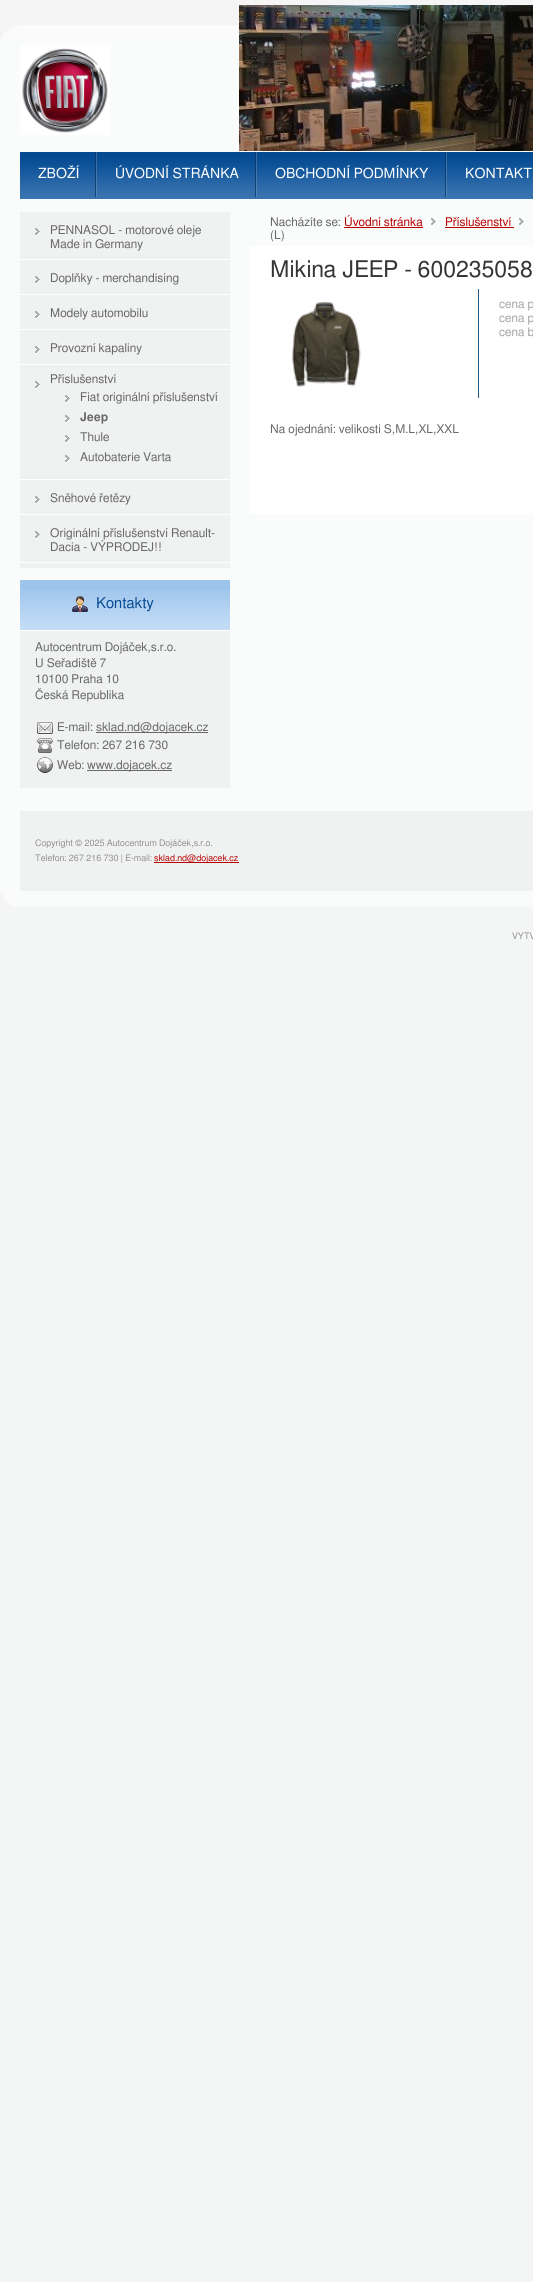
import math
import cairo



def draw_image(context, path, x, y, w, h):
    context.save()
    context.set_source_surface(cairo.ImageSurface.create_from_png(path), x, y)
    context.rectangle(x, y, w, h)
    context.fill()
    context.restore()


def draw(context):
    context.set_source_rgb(244 / 255, 245 / 255, 245 / 255)
    context.paint()
    context.set_source_rgb(250 / 255, 251 / 255, 251 / 255)
    context.rectangle(0, 39, 533, 868)
    context.fill()
    draw_image(context, "images/1.png", 0, 0, 533, 39)
    draw_image(context, "images/2.png", 20, 45, 90, 90)
    draw_image(context, "images/3.png", 239, 5, 294, 146)
    context.set_source_rgb(3 / 255, 74 / 255, 146 / 255)
    context.rectangle(20, 152, 513, 6)
    context.fill()
    draw_image(context, "images/4.png", 20, 158, 513, 41)
    draw_image(context, "images/5.png", 95, 152, 2, 45)
    draw_image(context, "images/5.png", 255, 152, 2, 45)
    draw_image(context, "images/5.png", 445, 152, 2, 45)
    context.set_source_rgb(240 / 255, 241 / 255, 241 / 255)
    context.rectangle(20, 212, 210, 356)
    context.fill()
    draw_image(context, "images/6.png", 35, 228, 5, 8)
    context.set_source_rgb(1, 1, 1)
    context.rectangle(20, 259, 210, 1)
    context.fill()
    draw_image(context, "images/6.png", 35, 276, 5, 8)
    context.rectangle(20, 294, 210, 1)
    context.fill()
    draw_image(context, "images/6.png", 35, 311, 5, 8)
    context.rectangle(20, 329, 210, 1)
    context.fill()
    draw_image(context, "images/6.png", 35, 346, 5, 8)
    context.rectangle(20, 364, 210, 1)
    context.fill()
    draw_image(context, "images/6.png", 35, 381, 5, 8)
    context.rectangle(20, 479, 210, 1)
    context.fill()
    draw_image(context, "images/6.png", 65, 395, 5, 8)
    draw_image(context, "images/6.png", 65, 415, 5, 8)
    draw_image(context, "images/6.png", 65, 435, 5, 8)
    draw_image(context, "images/6.png", 65, 455, 5, 8)
    draw_image(context, "images/6.png", 35, 496, 5, 8)
    context.rectangle(20, 514, 210, 1)
    context.fill()
    draw_image(context, "images/6.png", 35, 531, 5, 8)
    context.rectangle(20, 562, 210, 1)
    context.fill()
    context.set_source_rgb(240 / 255, 241 / 255, 241 / 255)
    context.rectangle(20, 631, 210, 157)
    context.fill()
    context.set_source_rgb(157 / 255, 196 / 255, 236 / 255)
    context.rectangle(20, 580, 210, 10)
    context.fill()
    draw_image(context, "images/7.png", 20, 590, 210, 40)
    context.set_source_rgb(1, 1, 1)
    context.rectangle(20, 630, 210, 1)
    context.fill()
    draw_image(context, "images/8.png", 37, 722, 16, 12)
    context.set_source_rgb(104 / 255, 104 / 255, 104 / 255)
    context.rectangle(96, 732, 112, 1)
    context.fill()
    draw_image(context, "images/9.png", 37, 738, 16, 15)
    draw_image(context, "images/10.png", 37, 757, 16, 16)
    context.rectangle(87, 770, 85, 1)
    context.fill()
    context.set_source_rgb(186 / 255, 1 / 255, 1 / 255)
    context.rectangle(344, 227, 79, 1)
    context.fill()
    draw_image(context, "images/11.png", 431, 218, 5, 8)
    context.rectangle(445, 227, 69, 1)
    context.fill()
    draw_image(context, "images/11.png", 519, 218, 5, 8)
    context.set_source_rgb(1, 1, 1)
    context.rectangle(250, 246, 283, 268)
    context.fill()
    context.set_source_rgb(35 / 255, 94 / 255, 138 / 255)
    context.rectangle(478, 289, 1, 109)
    context.fill()
    draw_image(context, "images/12.png", 292, 301, 69, 86)
    context.set_source_rgb(240 / 255, 241 / 255, 241 / 255)
    context.rectangle(20, 811, 513, 80)
    context.fill()
    context.set_source_rgb(186 / 255, 1 / 255, 1 / 255)
    context.rectangle(154, 862, 85, 1)
    context.fill()
    draw_image(context, "images/13.png", 0, 892, 15, 15)
    context.select_font_face("FreeSans")
    context.set_font_size(14)
    context.set_source_rgb(1, 1, 1)
    context.move_to(38, 178)
    context.show_text("ZBOŽÍ")
    context.move_to(115, 178)
    context.show_text("ÚVODNÍ STRÁNKA")
    context.move_to(275, 178)
    context.show_text("OBCHODNÍ PODMÍNKY")
    context.move_to(465, 178)
    context.show_text("KONTAKT")
    context.set_font_size(12)
    context.set_source_rgb(104 / 255, 104 / 255, 104 / 255)
    context.move_to(50, 234)
    context.show_text("PENNASOL - motorové oleje")
    context.move_to(50, 248)
    context.show_text("Made in Germany")
    context.move_to(50, 282)
    context.show_text("Doplňky - merchandising")
    context.move_to(50, 317)
    context.show_text("Modely automobilu")
    context.move_to(50, 352)
    context.show_text("Provozní kapaliny")
    context.move_to(50, 383)
    context.show_text("Příslušenství")
    context.move_to(80, 401)
    context.show_text("Fiat originální příslušenství")
    context.select_font_face("FreeSans SemiBold")
    context.move_to(80, 421)
    context.show_text("Jeep")
    context.select_font_face("FreeSans")
    context.move_to(80, 441)
    context.show_text("Thule")
    context.move_to(80, 461)
    context.show_text("Autobaterie Varta")
    context.move_to(50, 502)
    context.show_text("Sněhové řetězy")
    context.move_to(50, 537)
    context.show_text("Originální příslušenství Renault-")
    context.move_to(50, 551)
    context.show_text("Dacia - VÝPRODEJ!!")
    context.set_font_size(15)
    context.set_source_rgb(8 / 255, 77 / 255, 148 / 255)
    context.move_to(96, 608)
    context.show_text("Kontakty")
    context.set_font_size(12)
    context.set_source_rgb(104 / 255, 104 / 255, 104 / 255)
    context.move_to(35, 651)
    context.show_text("Autocentrum Dojáček,s.r.o.")
    context.move_to(35, 667)
    context.show_text("U Seřadiště 7")
    context.move_to(35, 683)
    context.show_text("10100 Praha 10")
    context.move_to(35, 699)
    context.show_text("Česká Republika")
    context.move_to(57, 731)
    context.show_text("E-mail:")
    context.move_to(96, 731)
    context.show_text("sklad.nd@dojacek.cz")
    context.move_to(57, 749)
    context.show_text("Telefon: 267 216 730")
    context.move_to(57, 769)
    context.show_text("Web:")
    context.move_to(87, 769)
    context.show_text("www.dojacek.cz")
    context.move_to(270, 226)
    context.show_text("Nacházíte se:")
    context.set_source_rgb(186 / 255, 1 / 255, 1 / 255)
    context.move_to(344, 226)
    context.show_text("Úvodní stránka")
    context.move_to(445, 226)
    context.show_text("Příslušenství")
    context.set_source_rgb(104 / 255, 104 / 255, 104 / 255)
    context.move_to(270, 239)
    context.show_text("(L)")
    context.set_font_size(23)
    context.set_source_rgb(54 / 255, 53 / 255, 53 / 255)
    context.move_to(270, 277)
    context.show_text("Mikina JEEP - 600235058")
    context.set_font_size(12)
    context.set_source_rgb(164 / 255, 164 / 255, 164 / 255)
    context.move_to(499, 308)
    context.show_text("cena p")
    context.move_to(499, 322)
    context.show_text("cena p")
    context.move_to(499, 336)
    context.show_text("cena b")
    context.set_source_rgb(104 / 255, 104 / 255, 104 / 255)
    context.move_to(270, 433)
    context.show_text("Na ojednání: velikosti S,M.L,XL,XXL")
    context.set_font_size(9)
    context.set_source_rgb(146 / 255, 144 / 255, 144 / 255)
    context.move_to(35, 846)
    context.show_text("Copyright © 2025 Autocentrum Dojáček,s.r.o.")
    context.move_to(35, 861)
    context.show_text("Telefon: 267 216 730 | E-mail:")
    context.set_source_rgb(186 / 255, 1 / 255, 1 / 255)
    context.move_to(154, 861)
    context.show_text("sklad.nd@dojacek.cz")
    context.set_source_rgb(146 / 255, 144 / 255, 144 / 255)
    context.move_to(512, 939)
    context.show_text("VYTV")


surface = cairo.ImageSurface(cairo.Format.RGB24, 533, 2282)
context = cairo.Context(surface)
options = cairo.FontOptions()
options.set_hint_metrics(cairo.HintMetrics.OFF)
options.set_hint_style(cairo.HintStyle.NONE)
context.set_font_options(options)
context.set_miter_limit(4)
draw(context)
surface.write_to_png("out.png")
